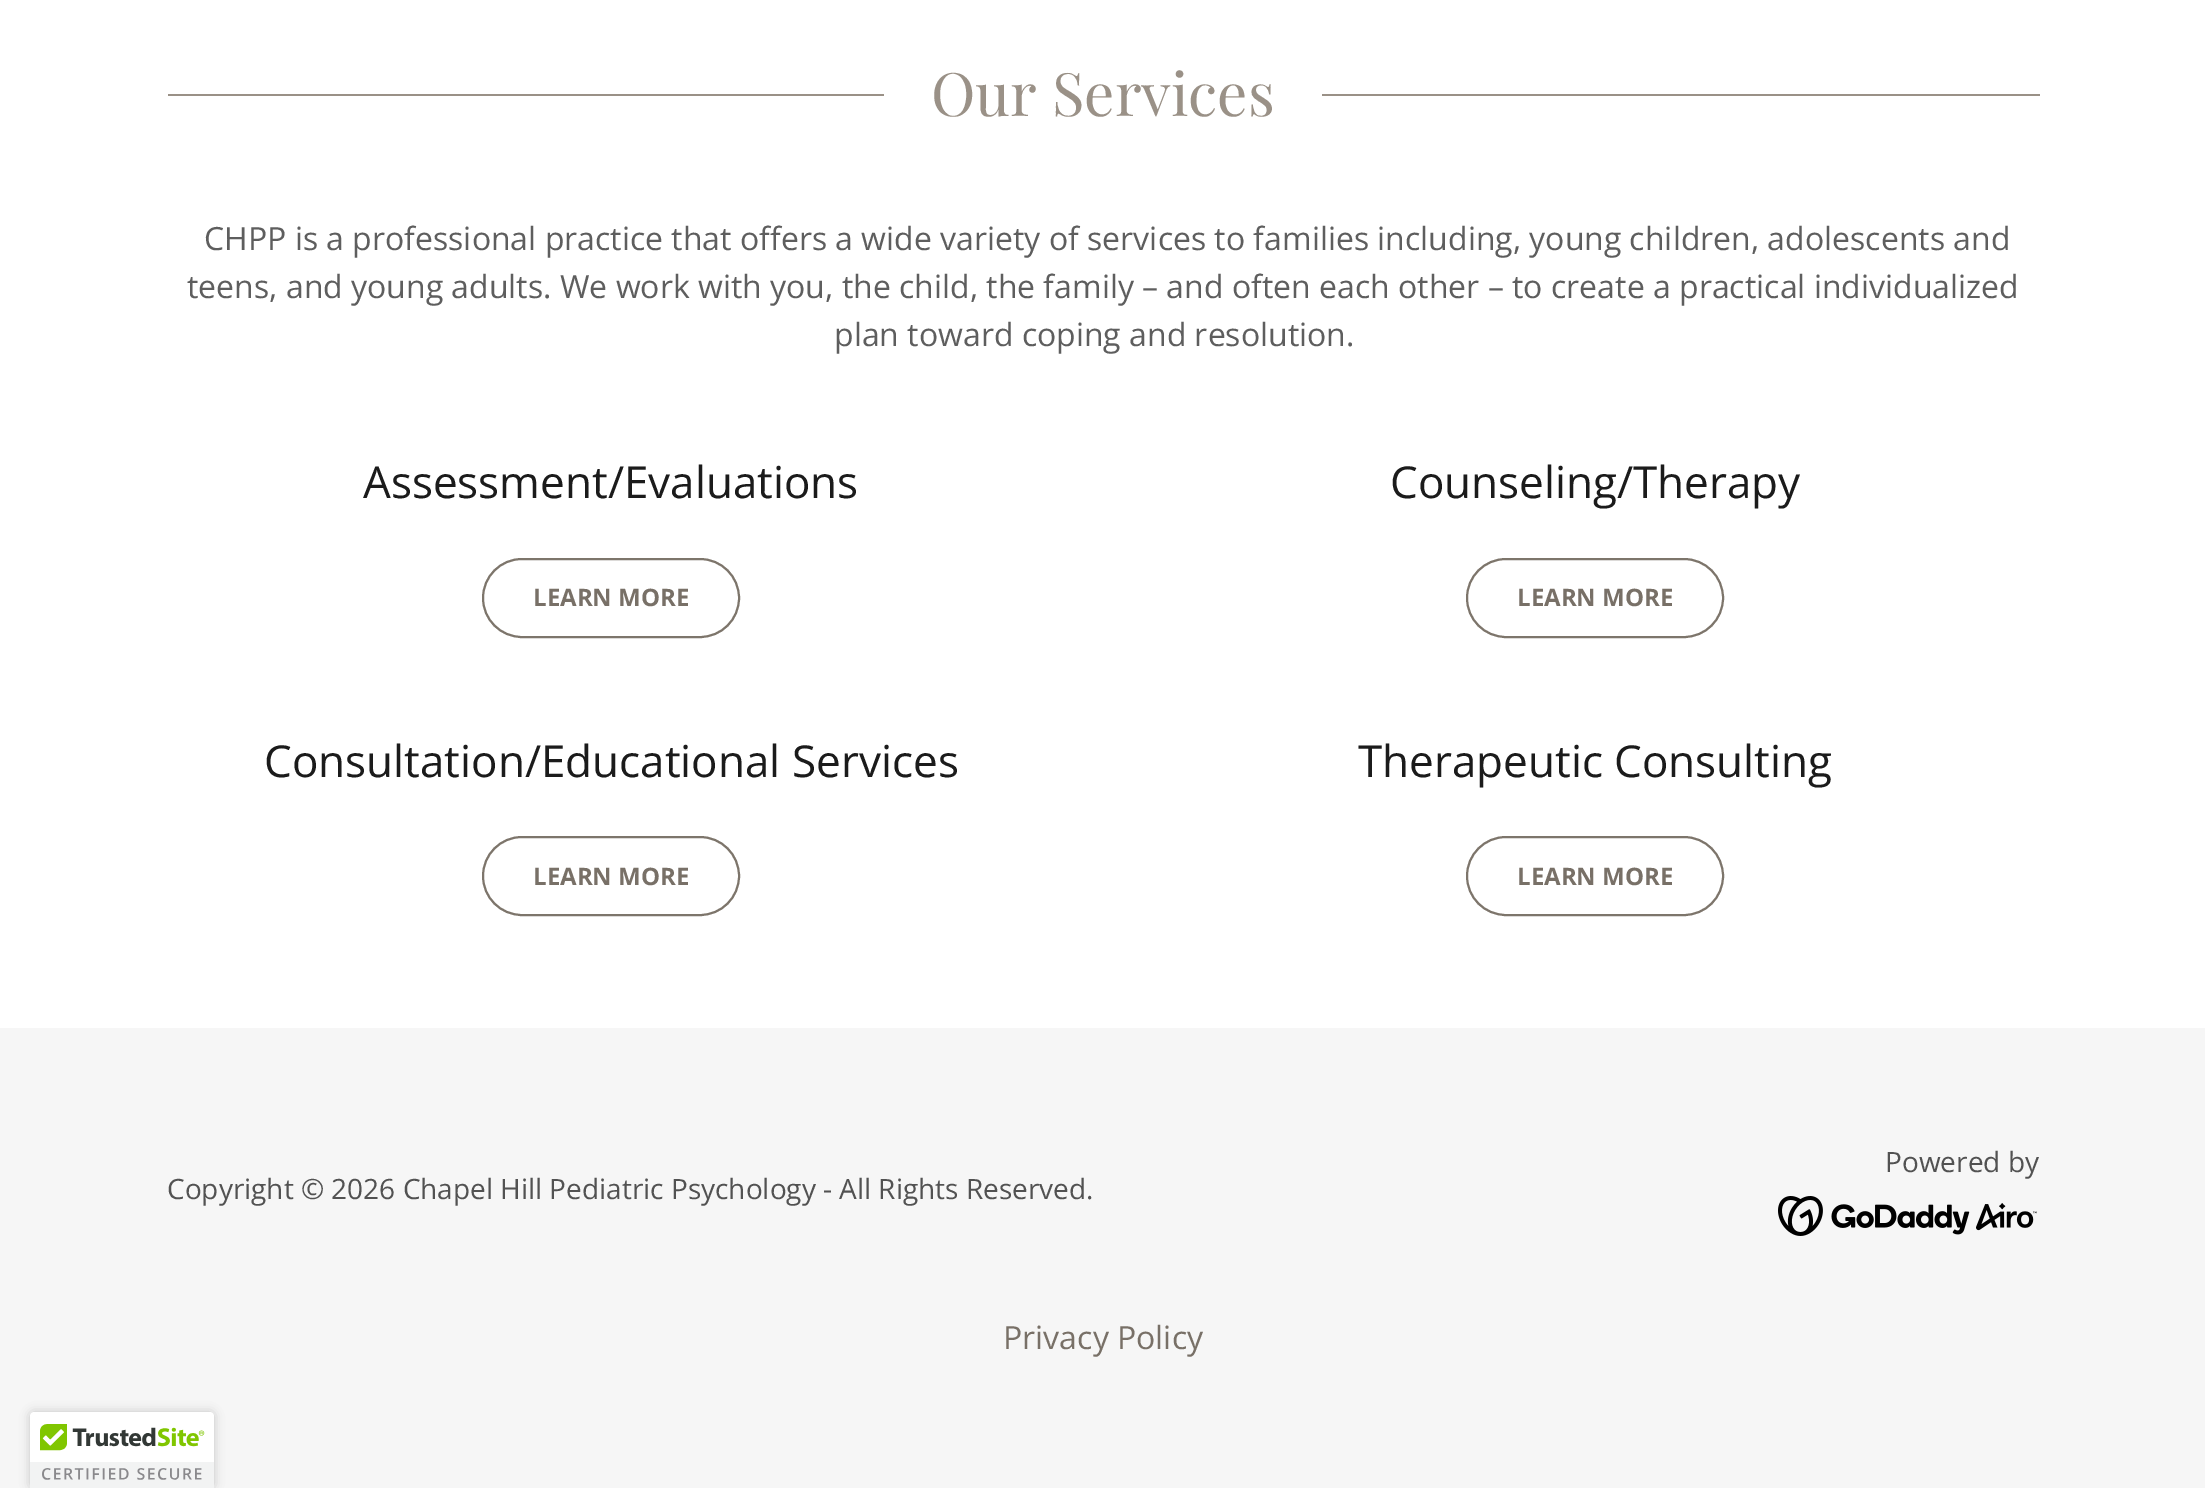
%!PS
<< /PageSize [2205 1488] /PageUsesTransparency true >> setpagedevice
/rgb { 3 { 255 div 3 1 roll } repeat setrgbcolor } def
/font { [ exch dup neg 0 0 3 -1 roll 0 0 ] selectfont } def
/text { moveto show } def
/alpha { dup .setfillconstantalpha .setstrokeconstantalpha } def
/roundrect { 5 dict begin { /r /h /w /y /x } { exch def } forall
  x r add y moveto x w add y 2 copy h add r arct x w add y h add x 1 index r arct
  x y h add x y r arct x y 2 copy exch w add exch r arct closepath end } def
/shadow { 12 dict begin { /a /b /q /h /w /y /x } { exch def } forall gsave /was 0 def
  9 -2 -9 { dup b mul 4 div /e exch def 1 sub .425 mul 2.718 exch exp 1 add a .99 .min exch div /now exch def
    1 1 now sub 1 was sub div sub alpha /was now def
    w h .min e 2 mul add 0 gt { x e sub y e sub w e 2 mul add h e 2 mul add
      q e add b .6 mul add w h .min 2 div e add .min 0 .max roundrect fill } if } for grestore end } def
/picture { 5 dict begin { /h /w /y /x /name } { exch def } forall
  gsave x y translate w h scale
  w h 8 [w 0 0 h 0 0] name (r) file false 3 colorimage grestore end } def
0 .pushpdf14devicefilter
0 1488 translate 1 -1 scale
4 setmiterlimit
246 246 246 rgb
0 0 2205 1488 rectfill
255 255 255 rgb
0 0 2205 1028 rectfill
154 145 135 rgb
168 94 716 2 rectfill
1322 94 718 2 rectfill
125 117 107 rgb
2 setlinewidth
483 559 256 78 39 roundrect stroke
1467 559 256 78 39 roundrect stroke
483 837 256 78 39 roundrect stroke
1467 837 256 78 39 roundrect stroke
(img_01.rgb) 1778 1196 259 40 picture
0 0 0 rgb
30 1412 184 76 4 5 0.2 shadow
255 255 255 rgb
34 1412 moveto 176 0 rlineto 2 0 4 2 4 4 rcurveto 0 72 rlineto -184 0 rlineto 0 -72 rlineto 0 -2 2 -4 4 -4 rcurveto closepath fill
(img_02.rgb) 30 1424 184 64 picture
/PlayfairDisplay-Regular 60 font
154 145 135 rgb
(Our Services) 931 116 text
/OpenSans-Regular 32 font
94 94 94 rgb
(CHPP is a professional practice that offers a wide variety of services to families including, young children, adolescents and) 204 250 text
(teens, and young adults. We work with you, the child, the family – and often each other – to create a practical individualized) 187 298 text
(plan toward coping and resolution.) 834 346 text
/OpenSans-Regular 44 font
27 27 27 rgb
(Assessment/Evaluations) 363 498 text
/OpenSans-Bold 24 font
120 112 103 rgb
(LEARN MORE) 533 606 text
/OpenSans-Regular 44 font
27 27 27 rgb
(Counseling/Therapy) 1390 498 text
/OpenSans-Bold 24 font
120 112 103 rgb
(LEARN MORE) 1517 606 text
/OpenSans-Regular 44 font
27 27 27 rgb
(Consultation/Educational Services) 264 777 text
/OpenSans-Bold 24 font
120 112 103 rgb
(LEARN MORE) 533 885 text
/OpenSans-Regular 44 font
27 27 27 rgb
(Therapeutic Consulting) 1358 777 text
/OpenSans-Bold 24 font
120 112 103 rgb
(LEARN MORE) 1517 885 text
/OpenSans-Regular 28 font
82 82 82 rgb
(Powered by) 1885 1172 text
(Copyright © 2026 Chapel Hill Pediatric Psychology - All Rights Reserved.) 167 1199 text
/OpenSans-Regular 32 font
120 112 103 rgb
(Privacy Policy) 1003 1349 text
.poppdf14devicefilter showpage
